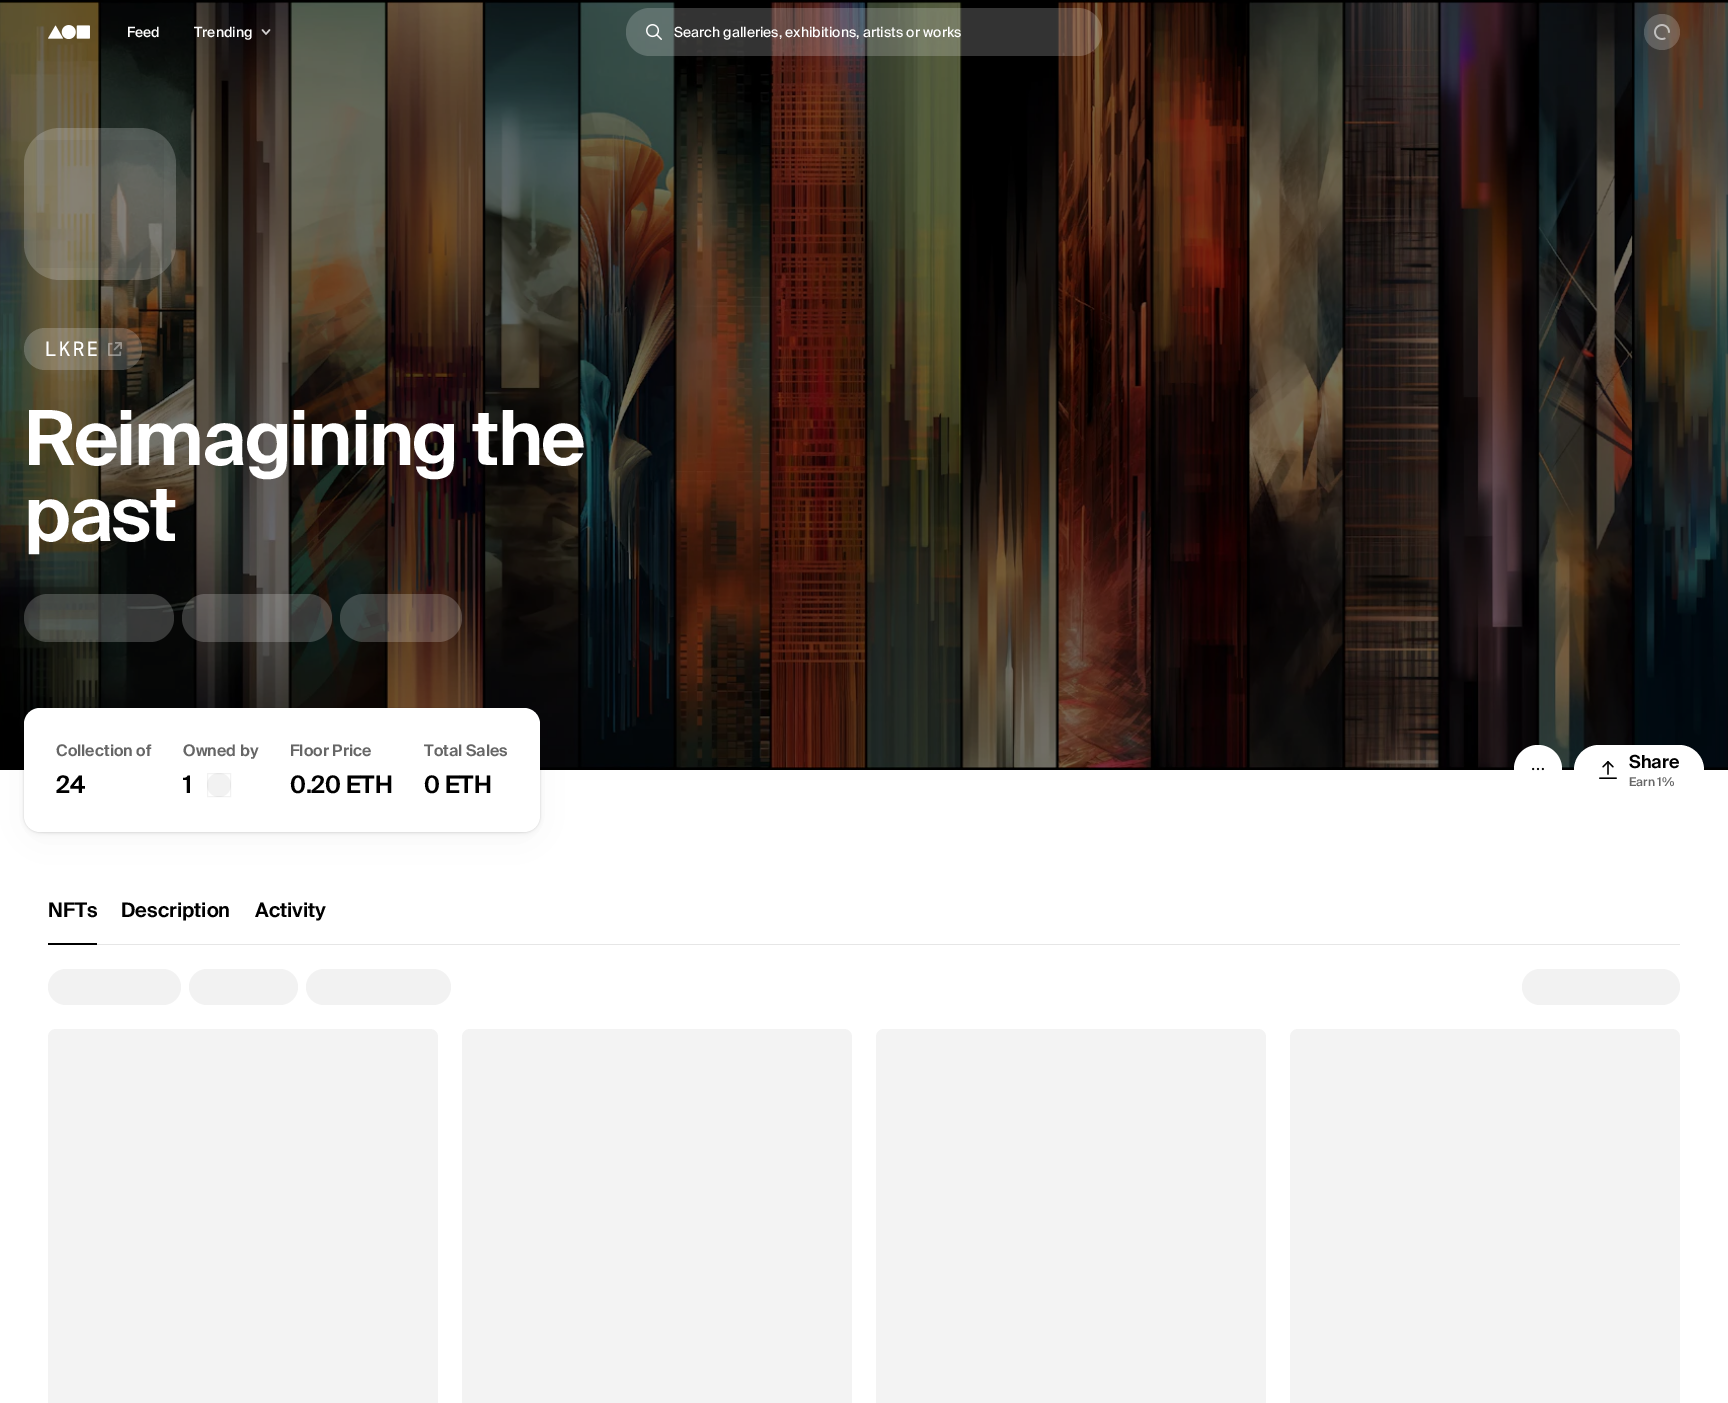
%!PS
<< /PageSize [1728 1403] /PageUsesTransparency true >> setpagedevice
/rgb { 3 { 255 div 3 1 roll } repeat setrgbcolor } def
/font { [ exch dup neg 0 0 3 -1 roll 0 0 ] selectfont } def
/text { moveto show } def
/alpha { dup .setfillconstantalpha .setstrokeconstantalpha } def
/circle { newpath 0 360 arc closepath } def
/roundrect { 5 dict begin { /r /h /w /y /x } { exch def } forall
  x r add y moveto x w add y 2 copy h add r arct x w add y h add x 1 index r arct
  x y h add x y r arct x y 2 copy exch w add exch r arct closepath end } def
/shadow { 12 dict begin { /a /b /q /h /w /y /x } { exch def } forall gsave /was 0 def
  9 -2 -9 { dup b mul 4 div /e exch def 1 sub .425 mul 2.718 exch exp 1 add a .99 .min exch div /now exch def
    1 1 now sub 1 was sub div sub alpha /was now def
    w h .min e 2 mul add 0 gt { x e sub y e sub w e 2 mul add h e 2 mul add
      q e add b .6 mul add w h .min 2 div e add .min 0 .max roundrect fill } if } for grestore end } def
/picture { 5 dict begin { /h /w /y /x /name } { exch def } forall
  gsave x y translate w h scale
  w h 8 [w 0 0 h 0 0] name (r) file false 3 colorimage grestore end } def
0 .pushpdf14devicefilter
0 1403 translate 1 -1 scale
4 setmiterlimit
255 255 255 rgb
0 0 1728 1403 rectfill
(img_04.rgb) 0 0 1728 770 picture
(img_01.rgb) 48 25 42 14 picture
0.8 alpha
1.5 setlinewidth
1 setlinecap
1 setlinejoin
262.5 30 moveto 3.5 4 rlineto 3.5 -4 rlineto stroke
0.2 alpha
626 8 476 48 24 roundrect fill
1 alpha
(img_02.rgb) 646 24 16 16 picture
0.2 alpha
1662 32 18 circle fill
1 alpha
(img_03.rgb) 1654 24 16 16 picture
0.2 alpha
24 128 152 152 36 roundrect fill
0.05 alpha
0 0 0 rgb
36 140 128 128 rectfill
0.2 alpha
255 255 255 rgb
24 328 118 42 21 roundrect fill
1 alpha
(img_05.rgb) 108 342 14 14 picture
0.2 alpha
24 594 150 48 24 roundrect fill
182 594 150 48 24 roundrect fill
340 594 122 48 24 roundrect fill
1 alpha
0 0 0 rgb
24 716 516 124 16 20 0.04 shadow
24 710 516 124 16 2.5 0.05 shadow
24 708 516 124 16 1 0.15 shadow
255 255 255 rgb
24 708 516 124 16 roundrect fill
242 242 242 rgb
219 785 12 circle fill
0.05 alpha
0 0 0 rgb
1 setlinewidth
0 setlinecap
0 setlinejoin
207.5 773.5 23 23 rectstroke
1 alpha
255 255 255 rgb
1538 769 24 circle fill
(img_06.rgb) 1532 767 12 4 picture
1574 745 130 50 25 roundrect fill
(img_07.rgb) 1599 761 18 18 picture
230 230 230 rgb
97 944 1583 1 rectfill
0 0 0 rgb
48 943 49 2 rectfill
242 242 242 rgb
48 969 133 36 18 roundrect fill
189 969 109 36 18 roundrect fill
306 969 145 36 18 roundrect fill
1522 969 158 36 18 roundrect fill
243 243 243 rgb
48 1029 390 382 8 roundrect fill
462 1029 390 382 8 roundrect fill
876 1029 390 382 8 roundrect fill
1290 1029 390 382 8 roundrect fill
/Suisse-Medium 14 font
255 255 255 rgb
(Feed) 127 37 text
(Trending) 194 37 text
/Suisse-Regular 14 font
(Search galleries, exhibitions, artists or works) 674 37 text
/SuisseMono-Regular 20 font
44 356 moveto 1 0 (LKRE) ashow
/Suisse-SemiBold 76 font
24 465 moveto -1.9 0 (Reimagining the) ashow
24 541 moveto -1.9 0 (past) ashow
/Suisse-SemiBold 16 font
102 102 102 rgb
(Collection of) 56 756 text
/Suisse-SemiBold 24 font
0 0 0 rgb
56 793 moveto -0.25 0 (24) ashow
/Suisse-SemiBold 16 font
102 102 102 rgb
(Owned by) 183 756 text
/Suisse-SemiBold 24 font
0 0 0 rgb
183 793 moveto -0.25 0 (1) ashow
/Suisse-SemiBold 16 font
102 102 102 rgb
(Floor Price) 290 756 text
/Suisse-SemiBold 24 font
0 0 0 rgb
290 793 moveto -0.25 0 (0.20 ETH) ashow
/Suisse-SemiBold 16 font
102 102 102 rgb
(Total Sales) 424 756 text
/Suisse-SemiBold 24 font
0 0 0 rgb
424 793 moveto -0.25 0 (0 ETH) ashow
/Suisse-SemiBold 18 font
(Share) 1629 768 text
/Suisse-Medium 12 font
102 102 102 rgb
(Earn 1%) 1629 786 text
/Suisse-SemiBold 20 font
0 0 0 rgb
(NFTs) 48 917 text
(Description) 121 917 text
(Activity) 255 917 text
.poppdf14devicefilter showpage
